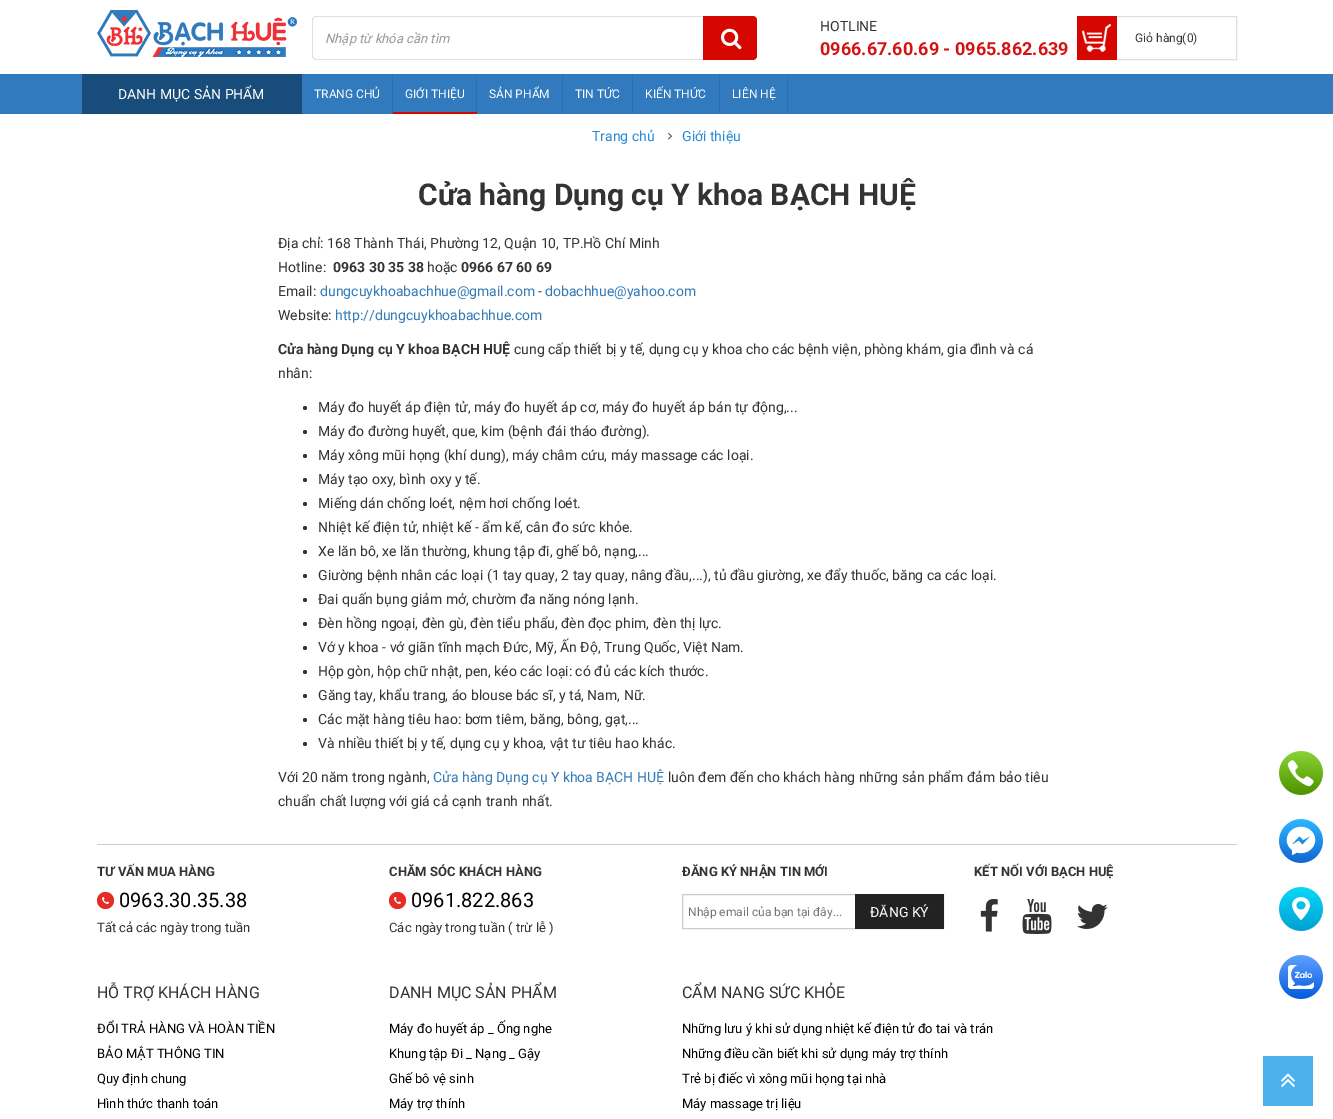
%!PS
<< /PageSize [1333 1119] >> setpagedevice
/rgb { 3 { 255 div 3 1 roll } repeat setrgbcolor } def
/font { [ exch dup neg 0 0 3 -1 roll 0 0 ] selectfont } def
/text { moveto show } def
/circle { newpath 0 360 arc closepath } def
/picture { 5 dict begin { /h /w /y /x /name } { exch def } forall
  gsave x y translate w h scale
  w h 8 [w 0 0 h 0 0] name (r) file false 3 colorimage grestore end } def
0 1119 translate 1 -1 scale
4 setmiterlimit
255 255 255 rgb
0 0 1333 1119 rectfill
(img_01.rgb) 97 10 200 47 picture
223 223 223 rgb
316 16 moveto 387 0 rlineto 0 44 rlineto -387 0 rlineto -2 0 -4 -2 -4 -4 rcurveto 0 -36 rlineto 0 -2 2 -4 4 -4 rcurveto closepath 316 17 moveto 387 0 rlineto 0 42 rlineto -387 0 rlineto -2 0 -3 -1 -3 -3 rcurveto 0 -36 rlineto 0 -2 1 -3 3 -3 rcurveto closepath eofill
214 7 1 rgb
703 16 moveto 50 0 rlineto 2 0 4 2 4 4 rcurveto 0 36 rlineto 0 2 -2 4 -4 4 rcurveto -50 0 rlineto closepath fill
(img_02.rgb) 721 28 21 22 picture
223 223 223 rgb
1077.5 16.5 159 43 rectstroke
214 7 1 rgb
1077 16 40 44 rectfill
(img_03.rgb) 1082 24 29 28 picture
48 122 189 rgb
0 74 1333 40 rectfill
23 76 123 rgb
82 74 220 40 rectfill
44 111 172 rgb
392 74 1 40 rectfill
476 74 1 40 rectfill
214 7 1 rgb
393 112 84 2 rectfill
44 111 172 rgb
562 74 1 40 rectfill
632 74 1 40 rectfill
719 74 1 40 rectfill
787 74 1 40 rectfill
(img_04.rgb) 668 132 4 8 picture
51 51 51 rgb
305 408 2 circle fill
305 432 2 circle fill
305 456 2 circle fill
305 480 2 circle fill
305 504 2 circle fill
305 528 2 circle fill
305 552 2 circle fill
305 576 2 circle fill
305 600 2 circle fill
305 624 2 circle fill
305 648 2 circle fill
305 672 2 circle fill
305 696 2 circle fill
305 720 2 circle fill
305 744 2 circle fill
204 204 204 rgb
97 844 1140 1 rectfill
229 44 37 rgb
105.5 900.5 8.5 circle fill
(img_05.rgb) 102 896 8 8 picture
397.5 900.5 8.5 circle fill
(img_05.rgb) 394 896 8 8 picture
204 204 204 rgb
682.5 894.5 261 34 rectstroke
34 34 34 rgb
855 894 89 35 rectfill
(img_06.rgb) 980 899 18 33 picture
(img_07.rgb) 1022 899 30 35 picture
(img_08.rgb) 1077 904 31 25 picture
(img_09.rgb) 1279 751 44 44 picture
(img_10.rgb) 1279 819 44 44 picture
(img_11.rgb) 1279 887 44 44 picture
(img_12.rgb) 1279 955 44 44 picture
77 178 236 rgb
1263 1056 50 50 rectfill
(img_13.rgb) 1281 1073 14 14 picture
/Roboto-Italic 13 font
153 153 153 rgb
(Nhập từ khóa cần tìm) 325 43 text
/Roboto-Regular 14 font
51 51 51 rgb
(HOTLINE) 820 31 text
/Roboto-Bold 18 font
212 18 18 rgb
(0966.67.60.69 - 0965.862.639) 820 55 text
/Roboto-Regular 12 font
51 51 51 rgb
(Giỏ hàng\(0\)) 1135 42 text
/Roboto-Regular 14 font
255 255 255 rgb
(DANH MỤC SẢN PHẨM) 118 99 text
/Roboto-Regular 12 font
(TRANG CHỦ) 314 98 text
(GIỚI THIỆU) 405 98 text
(SẢN PHẨM) 489 98 text
(TIN TỨC) 575 98 text
(KIẾN THỨC) 645 98 text
(LIÊN HỆ) 732 98 text
/Roboto-Regular 14 font
40 138 214 rgb
(Trang chủ) 592 141 text
(Giới thiệu) 682 141 text
/Roboto-Bold 30 font
51 51 51 rgb
(Cửa hàng Dụng cụ Y khoa BẠCH HUỆ) 418 205 text
/Roboto-Regular 14 font
(Địa chỉ: 168 Thành Thái, Phường 12, Quận 10, TP.Hồ Chí Minh) 278 248 text
(Hotline:) 278 272 text
/Roboto-Bold 14 font
(0963 30 35 38) 333 272 text
/Roboto-Regular 14 font
(hoặc) 427 272 text
/Roboto-Bold 14 font
(0966 67 60 69) 461 272 text
/Roboto-Regular 14 font
(Email:) 278 296 text
51 122 183 rgb
(dungcuykhoabachhue@gmail.com) 320 296 text
51 51 51 rgb
(-) 538 296 text
51 122 183 rgb
(dobachhue@yahoo.com) 545 296 text
51 51 51 rgb
(Website:) 278 320 text
51 122 183 rgb
(http://dungcuykhoabachhue.com) 335 320 text
/Roboto-Bold 14 font
51 51 51 rgb
(Cửa hàng Dụng cụ Y khoa BẠCH HUỆ) 278 354 text
/Roboto-Regular 14 font
(cung cấp thiết bị y tế, dụng cụ y khoa cho các bệnh viện, phòng khám, gia đình và cá) 514 354 text
(nhân:) 278 378 text
(Máy đo huyết áp điện tử, máy đo huyết áp cơ, máy đo huyết áp bán tự động,...) 318 412 text
(Máy đo đường huyết, que, kim \(bệnh đái tháo đường\).) 318 436 text
(Máy xông mũi họng \(khí dung\), máy châm cứu, máy massage các loại.) 318 460 text
(Máy tạo oxy, bình oxy y tế.) 318 484 text
(Miếng dán chống loét, nệm hơi chống loét.) 318 508 text
(Nhiệt kế điện tử, nhiệt kế - ẩm kế, cân đo sức khỏe.) 318 532 text
(Xe lăn bô, xe lăn thường, khung tập đi, ghế bô, nạng,...) 318 556 text
(Giường bệnh nhân các loại \(1 tay quay, 2 tay quay, nâng đầu,...\), tủ đầu giường, xe đẩy thuốc, băng ca các loại.) 318 580 text
(Đai quấn bụng giảm mở, chườm đa năng nóng lạnh.) 318 604 text
(Đèn hồng ngoại, đèn gù, đèn tiểu phẩu, đèn đọc phim, đèn thị lực.) 318 628 text
(Vớ y khoa - vớ giãn tĩnh mạch Đức, Mỹ, Ấn Độ, Trung Quốc, Việt Nam.) 318 652 text
(Hộp gòn, hộp chữ nhật, pen, kéo các loại: có đủ các kích thước.) 318 676 text
(Găng tay, khẩu trang, áo blouse bác sĩ, y tá, Nam, Nữ.) 318 700 text
(Các mặt hàng tiêu hao: bơm tiêm, băng, bông, gạt,...) 318 724 text
(Và nhiều thiết bị y tế, dụng cụ y khoa, vật tư tiêu hao khác.) 318 748 text
(Với 20 năm trong ngành,) 278 782 text
51 122 183 rgb
(Cửa hàng Dụng cụ Y khoa BẠCH HUỆ) 433 782 text
51 51 51 rgb
(luôn đem đến cho khách hàng những sản phẩm đảm bảo tiêu) 668 782 text
(chuẩn chất lượng với giá cả cạnh tranh nhất.) 278 806 text
/Roboto-Bold 13 font
(TƯ VẤN MUA HÀNG) 97 876 text
/Roboto-Regular 20 font
0 0 0 rgb
(0963.30.35.38) 119 907 text
/Roboto-Regular 13 font
51 51 51 rgb
(Tất cả các ngày trong tuần) 97 932 text
/Roboto-Bold 13 font
(CHĂM SÓC KHÁCH HÀNG) 389 876 text
/Roboto-Regular 20 font
0 0 0 rgb
(0961.822.863) 411 907 text
/Roboto-Regular 13 font
51 51 51 rgb
(Các ngày trong tuần \( trừ lễ \)) 389 932 text
/Roboto-Bold 13 font
(ĐĂNG KÝ NHẬN TIN MỚI) 682 876 text
/Roboto-Regular 12 font
117 117 117 rgb
(Nhập email của bạn tại đây...) 688 916 text
/Roboto-Regular 14 font
255 255 255 rgb
(ĐĂNG KÝ) 870 917 text
/Roboto-Bold 13 font
51 51 51 rgb
(KẾT NỐI VỚI BẠCH HUỆ) 974 876 text
/Roboto-Regular 16 font
(HỖ TRỢ KHÁCH HÀNG) 97 998 text
/Roboto-Regular 13 font
0 0 0 rgb
(ĐỔI TRẢ HÀNG VÀ HOÀN TIỀN) 97 1033 text
(BẢO MẬT THÔNG TIN) 97 1058 text
(Quy định chung) 97 1083 text
(Hình thức thanh toán) 97 1108 text
/Roboto-Regular 16 font
51 51 51 rgb
(DANH MỤC SẢN PHẨM) 389 998 text
/Roboto-Regular 13 font
0 0 0 rgb
(Máy đo huyết áp _ Ống nghe) 389 1033 text
(Khung tập Đi _ Nạng _ Gậy) 389 1058 text
(Ghế bô vệ sinh) 389 1083 text
(Máy trợ thính) 389 1108 text
/Roboto-Regular 16 font
51 51 51 rgb
(CẨM NANG SỨC KHỎE) 682 998 text
/Roboto-Regular 13 font
0 0 0 rgb
(Những lưu ý khi sử dụng nhiệt kế điện tử đo tai và trán) 682 1033 text
(Những điều cần biết khi sử dụng máy trợ thính) 682 1058 text
(Trẻ bị điếc vì xông mũi họng tại nhà) 682 1083 text
(Máy massage trị liệu) 682 1108 text
showpage
